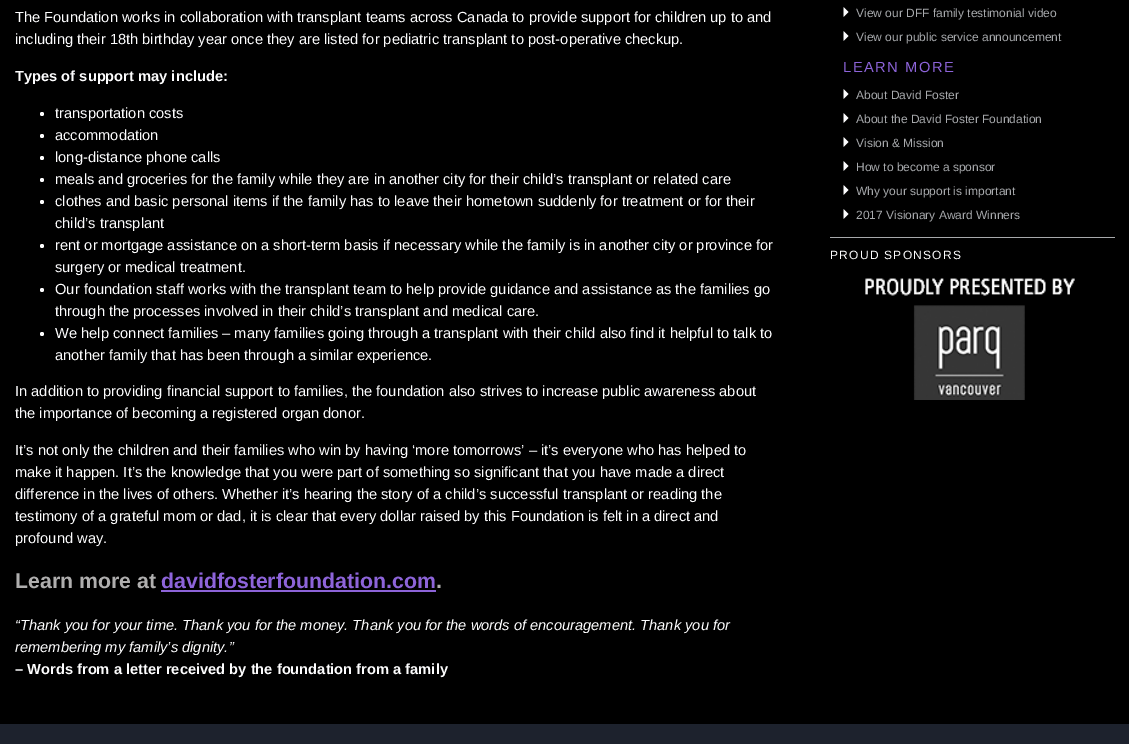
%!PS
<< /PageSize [1129 744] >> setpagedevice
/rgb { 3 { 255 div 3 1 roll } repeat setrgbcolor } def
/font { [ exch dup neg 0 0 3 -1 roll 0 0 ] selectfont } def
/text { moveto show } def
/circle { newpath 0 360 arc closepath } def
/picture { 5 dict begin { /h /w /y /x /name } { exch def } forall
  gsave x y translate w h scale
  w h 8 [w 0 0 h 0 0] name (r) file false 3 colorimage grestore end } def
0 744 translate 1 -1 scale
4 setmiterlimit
29 34 45 rgb
0 0 1129 744 rectfill
0 0 0 rgb
0 0 1129 724 rectfill
253 253 254 rgb
42 114 2 circle fill
42 136 2 circle fill
42 158 2 circle fill
42 180 2 circle fill
42 202 2 circle fill
42 246 2 circle fill
42 290 2 circle fill
42 334 2 circle fill
141 100 217 rgb
161 590 275 2 rectfill
167 169 171 rgb
830 237 285 1 rectfill
(img_01.rgb) 843 7 6 10 picture
(img_01.rgb) 843 31 6 10 picture
(img_01.rgb) 843 89 6 10 picture
(img_01.rgb) 843 113 6 10 picture
(img_01.rgb) 843 137 6 10 picture
(img_01.rgb) 843 161 6 10 picture
(img_01.rgb) 843 185 6 10 picture
(img_01.rgb) 843 209 6 10 picture
(img_02.rgb) 865 278 210 122 picture
/LiberationSans-Regular 14.67 font
253 253 254 rgb
(The Foundation works in collaboration with transplant teams across Canada to provide support for children up to and) 15 22 text
(including their 18th birthday year once they are listed for pediatric transplant to post-operative checkup.) 15 44 text
/LiberationSans-Bold 14.67 font
(Types of support may include:) 15 81 text
/LiberationSans-Regular 14.67 font
(transportation costs) 55 118 text
(accommodation) 55 140 text
(long-distance phone calls) 55 162 text
(meals and groceries for the family while they are in another city for their child’s transplant or related care) 55 184 text
(clothes and basic personal items if the family has to leave their hometown suddenly for treatment or for their) 55 206 text
(child’s transplant) 55 228 text
(rent or mortgage assistance on a short-term basis if necessary while the family is in another city or province for) 55 250 text
(surgery or medical treatment.) 55 272 text
(Our foundation staff works with the transplant team to help provide guidance and assistance as the families go) 55 294 text
(through the processes involved in their child’s transplant and medical care.) 55 316 text
(We help connect families – many families going through a transplant with their child also find it helpful to talk to) 55 338 text
(another family that has been through a similar experience.) 55 360 text
(In addition to providing financial support to families, the foundation also strives to increase public awareness about) 15 396 text
(the importance of becoming a registered organ donor.) 15 418 text
(It’s not only the children and their families who win by having ‘more tomorrows’ – it’s everyone who has helped to) 15 455 text
(make it happen. It’s the knowledge that you were part of something so significant that you have made a direct) 15 477 text
(difference in the lives of others. Whether it’s hearing the story of a child’s successful transplant or reading the) 15 499 text
(testimony of a grateful mom or dad, it is clear that every dollar raised by this Foundation is felt in a direct and) 15 521 text
(profound way.) 15 543 text
/LiberationSans-Bold 21.3 font
175 174 174 rgb
(Learn more at) 15 588 text
141 100 217 rgb
(davidfosterfoundation.com) 161 588 text
175 174 174 rgb
(.) 436 588 text
/LiberationSans-Italic 14.67 font
253 253 254 rgb
(“Thank you for your time. Thank you for the money. Thank you for the words of encouragement. Thank you for) 15 630 text
(remembering my family’s dignity.”) 15 652 text
/LiberationSans-Bold 14.67 font
(– Words from a letter received by the foundation from a family) 15 674 text
/LiberationSans-Regular 12 font
167 169 172 rgb
(View our DFF family testimonial video) 856 17 text
(View our public service announcement) 856 41 text
/LiberationSans-Regular 14.67 font
141 100 217 rgb
843 72 moveto 1.5 0 (LEARN MORE) ashow
/LiberationSans-Regular 12 font
167 169 172 rgb
(About David Foster) 856 99 text
(About the David Foster Foundation) 856 123 text
(Vision & Mission) 856 147 text
(How to become a sponsor) 856 171 text
(Why your support is important) 856 195 text
(2017 Visionary Award Winners) 856 219 text
253 253 254 rgb
830 259 moveto 1.25 0 (PROUD SPONSORS) ashow
showpage
